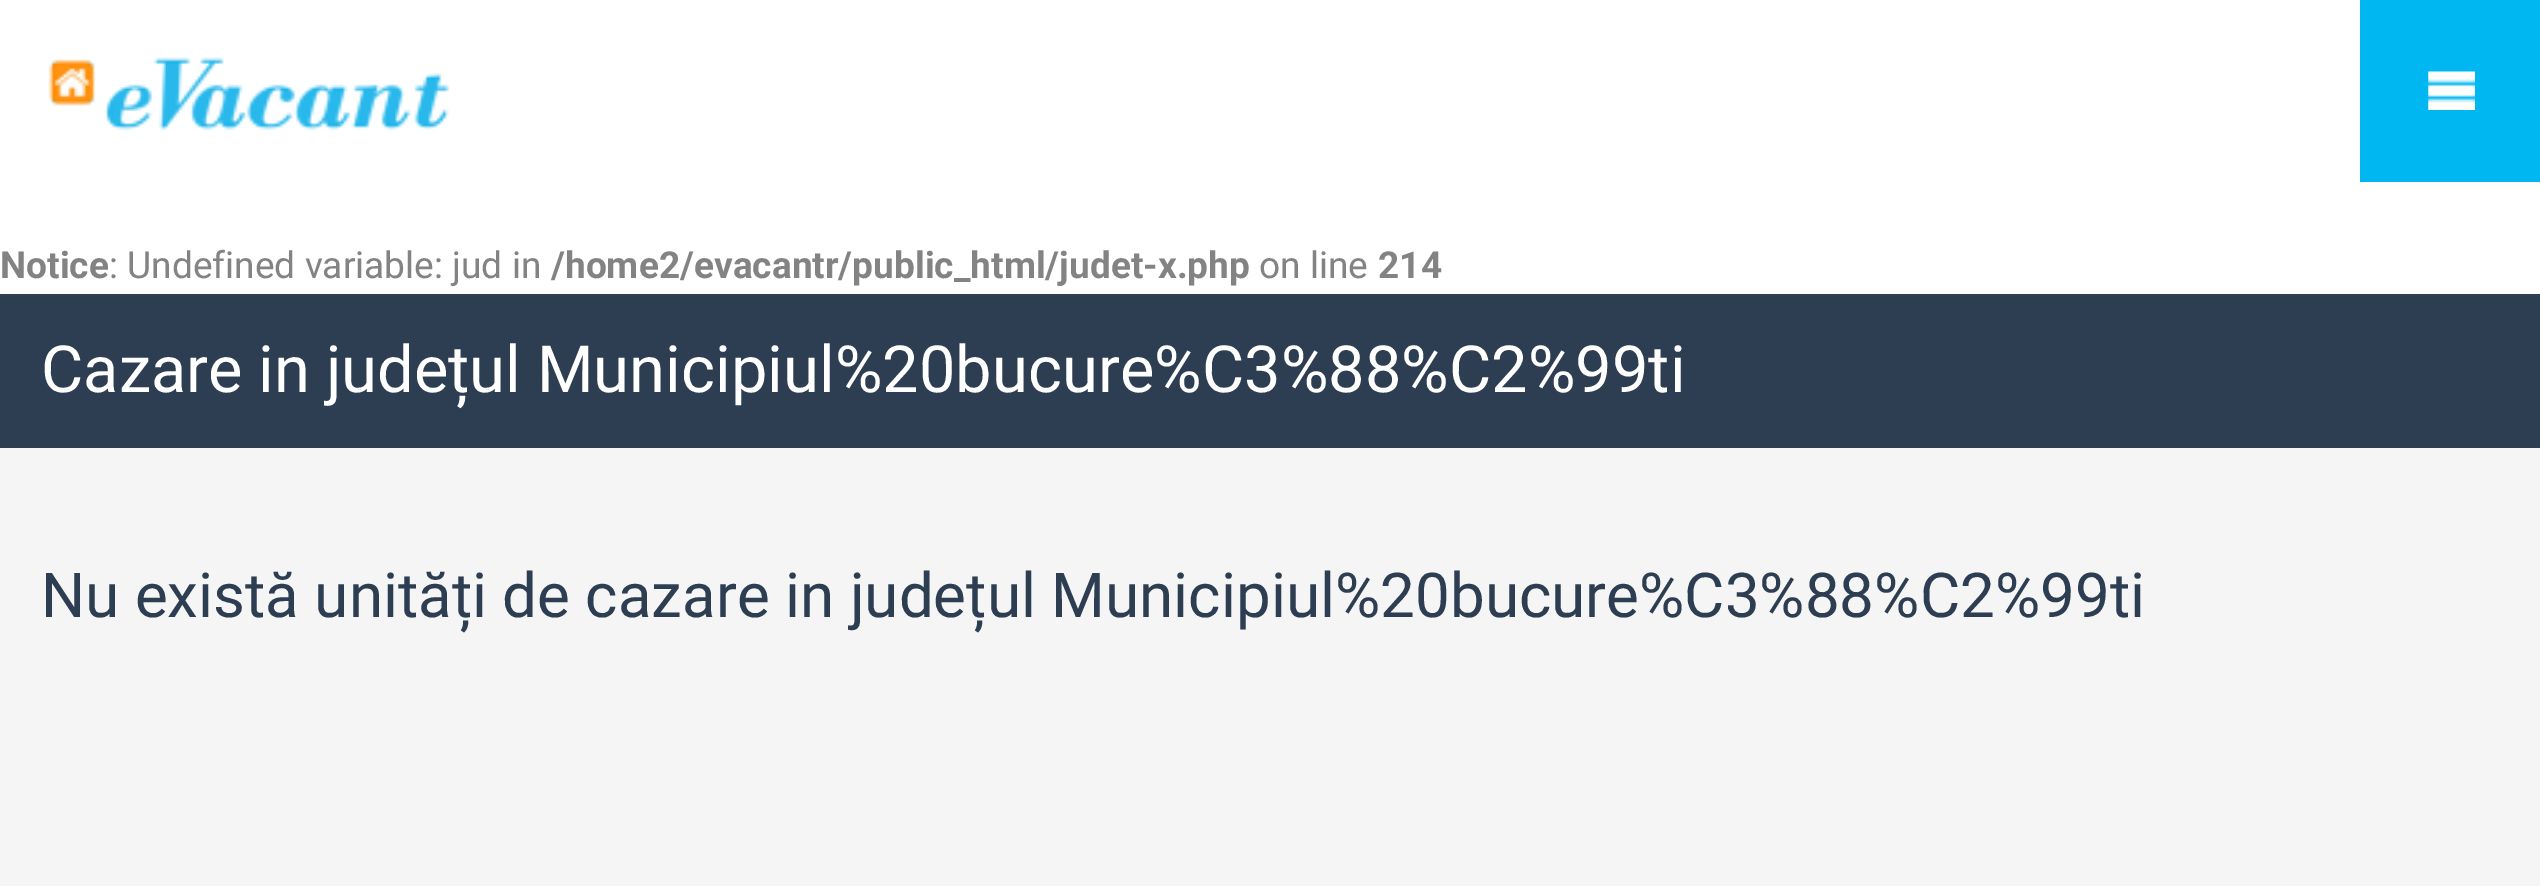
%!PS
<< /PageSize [2540 886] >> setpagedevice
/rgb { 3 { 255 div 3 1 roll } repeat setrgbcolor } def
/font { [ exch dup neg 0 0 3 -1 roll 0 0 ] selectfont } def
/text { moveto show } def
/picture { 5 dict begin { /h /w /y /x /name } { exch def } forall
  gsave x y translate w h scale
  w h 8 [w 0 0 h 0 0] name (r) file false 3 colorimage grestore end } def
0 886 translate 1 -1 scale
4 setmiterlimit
255 255 255 rgb
0 0 2540 886 rectfill
(img_01.rgb) 48 57 402 74 picture
1 183 242 rgb
2360 0 180 182 rectfill
(img_02.rgb) 2428 71 47 39 picture
45 62 82 rgb
0 294 2540 154 rectfill
245 245 245 rgb
0 448 2540 438 rectfill
/Roboto-Bold 37.1 font
131 131 131 rgb
(Notice) 0 278 text
/Roboto-Regular 37.1 font
(: Undefined variable: jud in) 109 278 text
/Roboto-Bold 37.1 font
(/home2/evacantr/public_html/judet-x.php) 551 278 text
/Roboto-Regular 37.1 font
(on line) 1259 278 text
/Roboto-Bold 37.1 font
(214) 1378 278 text
/Roboto-Regular 65 font
255 255 255 rgb
41 392 moveto -0.5 0 32 (Cazare in județul Municipiul%20bucure%C3%88%C2%99ti) widthshow
/Roboto-Regular 61.9 font
45 62 82 rgb
(Nu există unități de cazare in județul Municipiul%20bucure%C3%88%C2%99ti) 41 617 text
showpage
